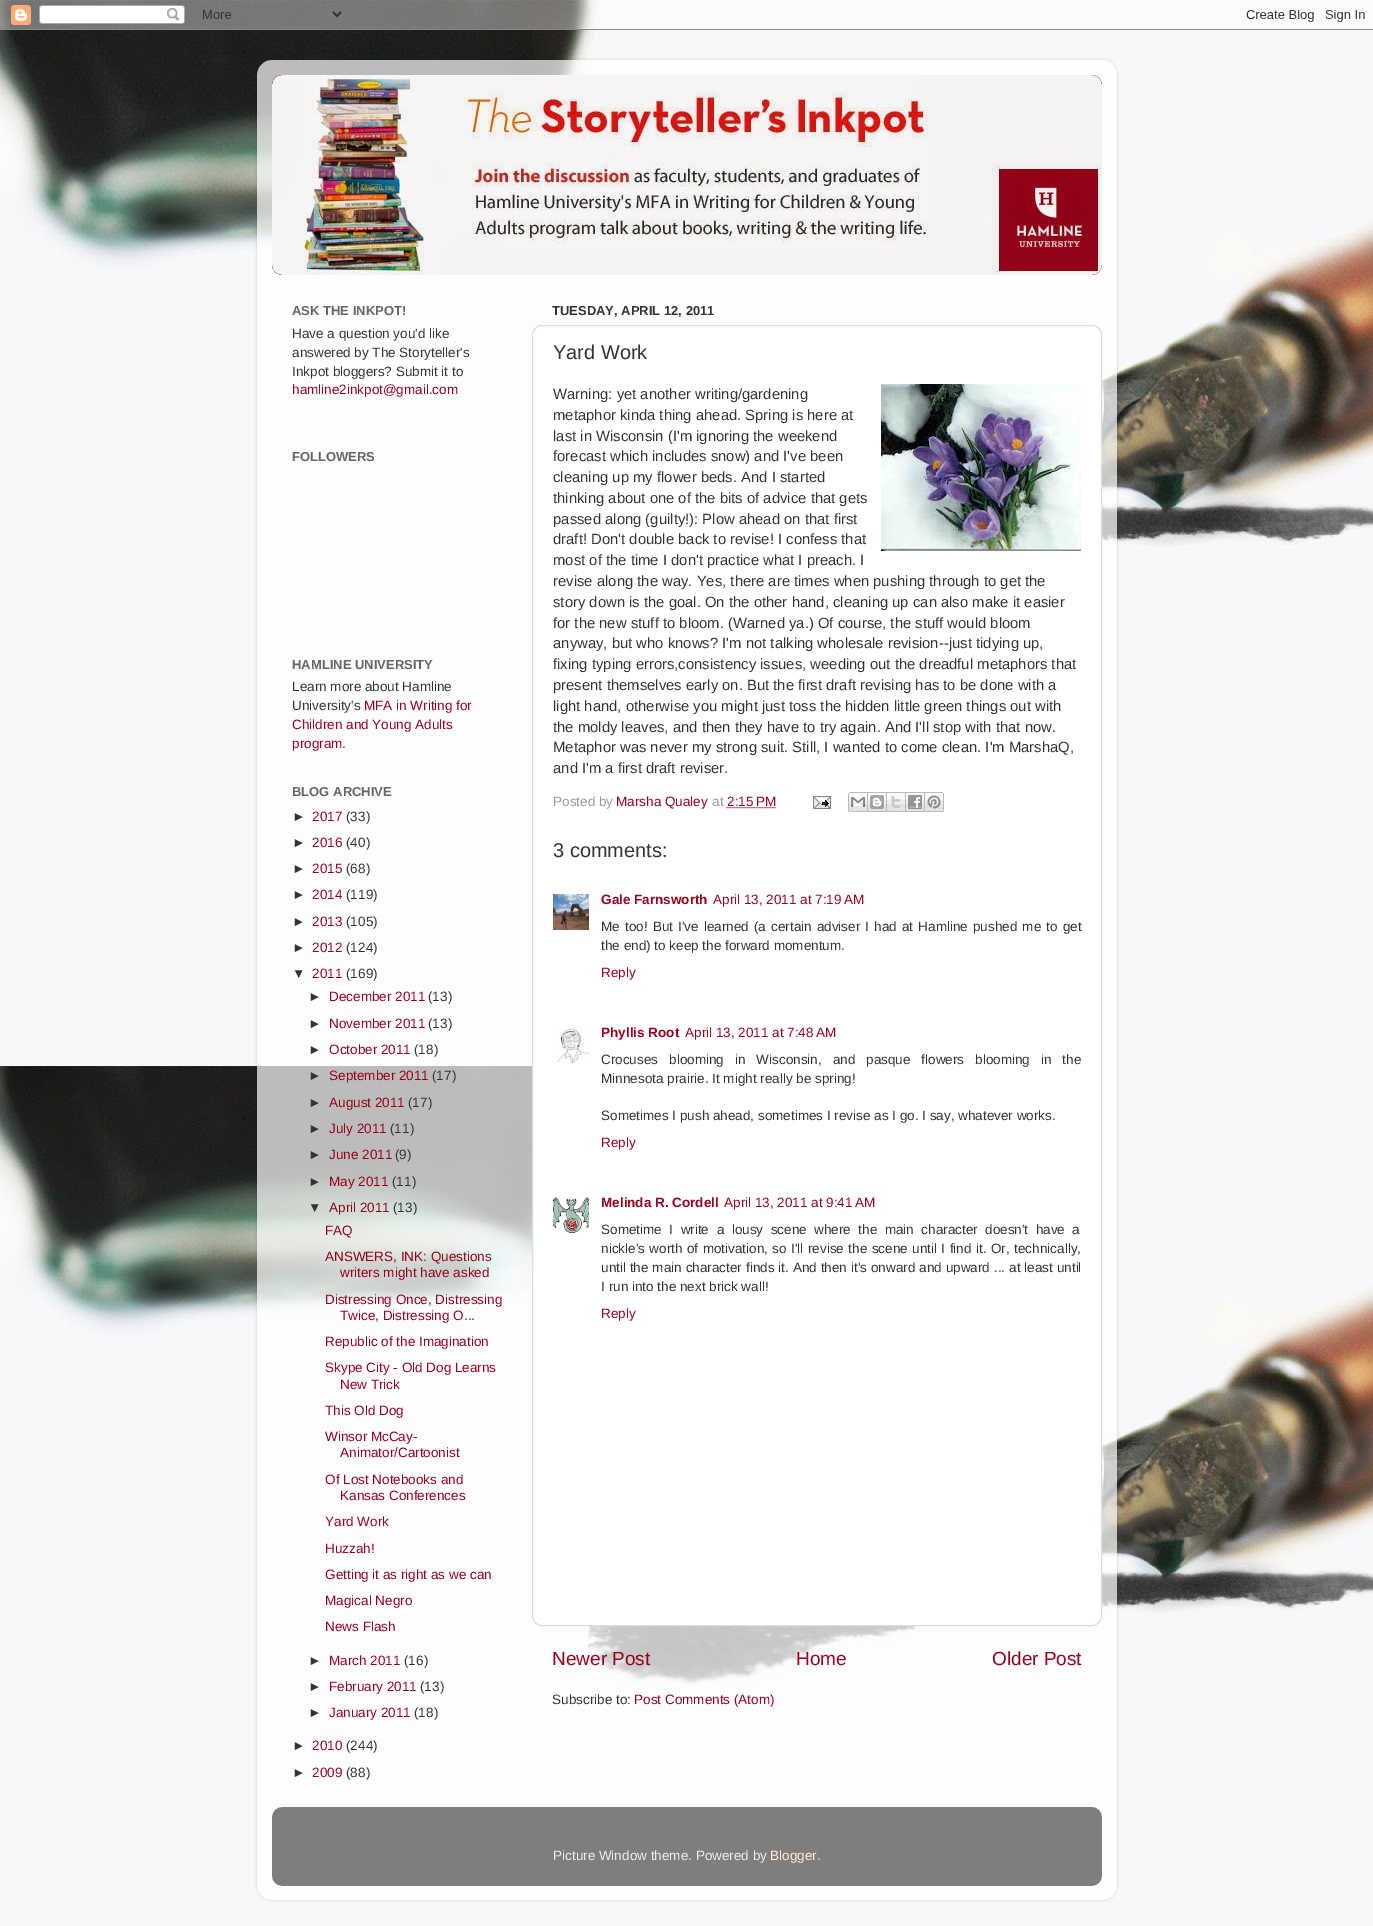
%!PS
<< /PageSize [1373 1926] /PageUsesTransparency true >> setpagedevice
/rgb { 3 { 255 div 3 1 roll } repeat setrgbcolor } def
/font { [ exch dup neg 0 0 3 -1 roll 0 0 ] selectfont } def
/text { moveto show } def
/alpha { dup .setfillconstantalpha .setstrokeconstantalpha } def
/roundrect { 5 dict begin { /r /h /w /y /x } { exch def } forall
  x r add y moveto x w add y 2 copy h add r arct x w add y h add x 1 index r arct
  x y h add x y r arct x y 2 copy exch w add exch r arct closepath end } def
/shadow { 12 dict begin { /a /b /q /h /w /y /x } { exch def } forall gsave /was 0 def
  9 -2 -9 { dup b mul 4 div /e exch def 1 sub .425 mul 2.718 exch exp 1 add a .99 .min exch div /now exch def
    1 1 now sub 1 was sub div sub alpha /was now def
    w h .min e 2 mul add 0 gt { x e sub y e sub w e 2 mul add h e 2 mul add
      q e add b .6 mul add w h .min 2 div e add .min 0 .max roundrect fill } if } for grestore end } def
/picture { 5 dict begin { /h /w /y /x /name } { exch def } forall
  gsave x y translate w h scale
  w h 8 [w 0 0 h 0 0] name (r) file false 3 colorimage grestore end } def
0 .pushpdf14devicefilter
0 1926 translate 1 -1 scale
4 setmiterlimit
255 255 255 rgb
0 0 1373 1926 rectfill
(img_01.rgb) 0 0 1373 1926 picture
(img_02.rgb) 0 0 1373 30 picture
gsave
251 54 moveto 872 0 rlineto 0 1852 rlineto -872 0 rlineto closepath 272 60 moveto 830 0 rlineto 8.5 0 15 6.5 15 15 rcurveto 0 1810 rlineto 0 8.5 -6.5 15 -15 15 rcurveto -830 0 rlineto -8.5 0 -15 -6.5 -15 -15 rcurveto 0 -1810 rlineto 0 -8.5 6.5 -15 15 -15 rcurveto closepath eoclip newpath
0 0 0 rgb
257 60 860 1840 15 1.5 0.15 shadow
grestore
(img_03.rgb) 257 60 860 1840 picture
153 17 68 rgb
272 75 830 200 10 roundrect fill
(img_04.rgb) 272 75 830 10 picture
(img_05.rgb) 272 75 830 200 picture
255 255 255 rgb
532.5 325.5 569 1300 9.5 roundrect gsave fill grestore
221 221 221 rgb
stroke
(img_06.rgb) 881 384 200 167 picture
149 2 30 rgb
[1 1] 0 setdash
726.5 807.5 moveto 49.5 0 rlineto stroke
(img_07.rgb) 813 796 18 13 picture
(img_08.rgb) 848 792 20 20 picture
(img_09.rgb) 868 792 19 20 picture
(img_10.rgb) 887 792 19 20 picture
(img_11.rgb) 906 792 19 20 picture
(img_12.rgb) 925 792 19 20 picture
(img_13.rgb) 553 894 36 36 picture
(img_14.rgb) 556 1027 33 36 picture
(img_15.rgb) 553 1197 36 36 picture
(img_16.rgb) 272 1807 830 79 picture
/LiberationSans-Bold 13 font
102 102 102 rgb
(ASK THE INKPOT!) 292 315 text
/LiberationSans-Regular 13.5 font
51 51 51 rgb
(Have a question you'd like) 292 338 text
(answered by The Storyteller's) 292 357 text
(Inkpot bloggers? Submit it to) 292 376 text
149 2 30 rgb
(hamline2inkpot@gmail.com) 292 394 text
/LiberationSans-Bold 13 font
102 102 102 rgb
(FOLLOWERS) 292 461 text
(HAMLINE UNIVERSITY) 292 669 text
/LiberationSans-Regular 13.5 font
51 51 51 rgb
(Learn more about Hamline) 292 691 text
(University's) 292 710 text
149 2 30 rgb
(MFA in Writing for) 364 710 text
(Children and Young Adults) 292 729 text
(program.) 292 748 text
/LiberationSans-Bold 13 font
102 102 102 rgb
(BLOG ARCHIVE) 292 796 text
/LiberationSans-Regular 13.5 font
51 51 51 rgb
(►) 292 821 text
149 2 30 rgb
(2017) 312 821 text
51 51 51 rgb
(\(33\)) 346 821 text
(►) 292 847 text
149 2 30 rgb
(2016) 312 847 text
51 51 51 rgb
(\(40\)) 346 847 text
(►) 292 873 text
149 2 30 rgb
(2015) 312 873 text
51 51 51 rgb
(\(68\)) 346 873 text
(►) 292 899 text
149 2 30 rgb
(2014) 312 899 text
51 51 51 rgb
(\(119\)) 346 899 text
(►) 292 926 text
149 2 30 rgb
(2013) 312 926 text
51 51 51 rgb
(\(105\)) 346 926 text
(►) 292 952 text
149 2 30 rgb
(2012) 312 952 text
51 51 51 rgb
(\(124\)) 346 952 text
(▼) 292 978 text
149 2 30 rgb
(2011) 312 978 text
51 51 51 rgb
(\(169\)) 346 978 text
(►) 308 1001 text
149 2 30 rgb
(December 2011) 329 1001 text
51 51 51 rgb
(\(13\)) 428 1001 text
(►) 308 1028 text
149 2 30 rgb
(November 2011) 329 1028 text
51 51 51 rgb
(\(13\)) 428 1028 text
(►) 308 1054 text
149 2 30 rgb
(October 2011) 329 1054 text
51 51 51 rgb
(\(18\)) 414 1054 text
(►) 308 1080 text
149 2 30 rgb
(September 2011) 329 1080 text
51 51 51 rgb
(\(17\)) 432 1080 text
(►) 308 1107 text
149 2 30 rgb
(August 2011) 329 1107 text
51 51 51 rgb
(\(17\)) 408 1107 text
(►) 308 1133 text
149 2 30 rgb
(July 2011) 329 1133 text
51 51 51 rgb
(\(11\)) 390 1133 text
(►) 308 1159 text
149 2 30 rgb
(June 2011) 329 1159 text
51 51 51 rgb
(\(9\)) 395 1159 text
(►) 308 1186 text
149 2 30 rgb
(May 2011) 329 1186 text
51 51 51 rgb
(\(11\)) 392 1186 text
(▼) 308 1212 text
149 2 30 rgb
(April 2011) 329 1212 text
51 51 51 rgb
(\(13\)) 393 1212 text
149 2 30 rgb
(FAQ) 325 1235 text
(ANSWERS, INK: Questions) 325 1261 text
(writers might have asked) 340 1277 text
(Distressing Once, Distressing) 325 1304 text
(Twice, Distressing O...) 340 1320 text
(Republic of the Imagination) 325 1346 text
(Skype City - Old Dog Learns) 325 1372 text
(New Trick) 340 1389 text
(This Old Dog) 325 1415 text
(Winsor McCay-) 325 1441 text
(Animator/Cartoonist) 340 1457 text
(Of Lost Notebooks and) 325 1484 text
(Kansas Conferences) 340 1500 text
(Yard Work) 325 1526 text
(Huzzah!) 325 1553 text
(Getting it as right as we can) 325 1579 text
(Magical Negro) 325 1605 text
(News Flash) 325 1631 text
51 51 51 rgb
(►) 308 1665 text
149 2 30 rgb
(March 2011) 329 1665 text
51 51 51 rgb
(\(16\)) 404 1665 text
(►) 308 1691 text
149 2 30 rgb
(February 2011) 329 1691 text
51 51 51 rgb
(\(13\)) 420 1691 text
(►) 308 1717 text
149 2 30 rgb
(January 2011) 329 1717 text
51 51 51 rgb
(\(18\)) 414 1717 text
(►) 292 1750 text
149 2 30 rgb
(2010) 312 1750 text
51 51 51 rgb
(\(244\)) 346 1750 text
(►) 292 1777 text
149 2 30 rgb
(2009) 312 1777 text
51 51 51 rgb
(\(88\)) 346 1777 text
/LiberationSans-Bold 13 font
(TUESDAY, APRIL 12, 2011) 552 315 text
/LiberationSans-Regular 20 font
(Yard Work) 553 359 text
/LiberationSans-Regular 14.85 font
(Warning: yet another writing/gardening) 553 399 text
(metaphor kinda thing ahead. Spring is here at) 553 420 text
(last in Wisconsin \(I'm ignoring the weekend) 553 441 text
(forecast which includes snow\) and I've been) 553 461 text
(cleaning up my flower beds. And I started) 553 482 text
(thinking about one of the bits of advice that gets) 553 503 text
(passed along \(guilty!\): Plow ahead on that first) 553 524 text
(draft! Don't double back to revise! I confess that) 553 544 text
(most of the time I don't practice what I preach. I) 553 565 text
(revise along the way. Yes, there are times when pushing through to get the) 553 586 text
(story down is the goal. On the other hand, cleaning up can also make it easier) 553 607 text
(for the new stuff to bloom. \(Warned ya.\) Of course, the stuff would bloom) 553 628 text
(anyway, but who knows? I'm not talking wholesale revision--just tidying up,) 553 648 text
(fixing typing errors,consistency issues, weeding out the dreadful metaphors that) 553 669 text
(present themselves early on. But the first draft revising has to be done with a) 553 690 text
(light hand, otherwise you might just toss the hidden little green things out with) 553 711 text
(the moldy leaves, and then they have to try again. And I'll stop with that now.) 553 732 text
(Metaphor was never my strong suit. Still, I wanted to come clean. I'm MarshaQ,) 553 752 text
(and I'm a first draft reviser.) 553 773 text
/LiberationSans-Regular 13.5 font
153 153 153 rgb
(Posted by) 553 806 text
149 2 30 rgb
(Marsha Qualey) 616 806 text
153 153 153 rgb
(at) 712 806 text
149 2 30 rgb
(2:15 PM) 727 806 text
/LiberationSans-Regular 20 font
51 51 51 rgb
(3 comments:) 553 857 text
/LiberationSans-Bold 13.5 font
149 2 30 rgb
(Gale Farnsworth) 601 904 text
/LiberationSans-Regular 13.5 font
(April 13, 2011 at 7:19 AM) 713 904 text
51 51 51 rgb
601 931 moveto 1.4 0 32 (Me too! But I've learned \(a certain adviser I had at Hamline pushed me to get) widthshow
(the end\) to keep the forward momentum.) 601 950 text
149 2 30 rgb
(Reply) 601 977 text
/LiberationSans-Bold 13.5 font
(Phyllis Root) 601 1037 text
/LiberationSans-Regular 13.5 font
(April 13, 2011 at 7:48 AM) 685 1037 text
51 51 51 rgb
601 1064 moveto 7.25 0 32 (Crocuses blooming in Wisconsin, and pasque flowers blooming in the) widthshow
(Minnesota prairie. It might really be spring!) 601 1083 text
(Sometimes I push ahead, sometimes I revise as I go. I say, whatever works.) 601 1120 text
149 2 30 rgb
(Reply) 601 1147 text
/LiberationSans-Bold 13.5 font
(Melinda R. Cordell) 601 1207 text
/LiberationSans-Regular 13.5 font
(April 13, 2011 at 9:41 AM) 724 1207 text
51 51 51 rgb
601 1234 moveto 3.75 0 32 (Sometime I write a lousy scene where the main character doesn't have a) widthshow
601 1253 moveto 0.75 0 32 (nickle's worth of motivation, so I'll revise the scene until I find it. Or, technically,) widthshow
601 1272 moveto 0.2 0 32 (until the main character finds it. And then it's onward and upward ... at least until) widthshow
(I run into the next brick wall!) 601 1291 text
149 2 30 rgb
(Reply) 601 1318 text
/LiberationSans-Regular 19 font
(Newer Post) 552 1665 text
(Home) 796 1665 text
(Older Post) 992 1665 text
/LiberationSans-Regular 13.5 font
51 51 51 rgb
(Subscribe to:) 552 1704 text
149 2 30 rgb
(Post Comments \(Atom\)) 634 1704 text
238 238 238 rgb
(Picture Window theme. Powered by) 553 1860 text
255 238 221 rgb
(Blogger) 770 1860 text
238 238 238 rgb
(.) 817 1860 text
.poppdf14devicefilter showpage
